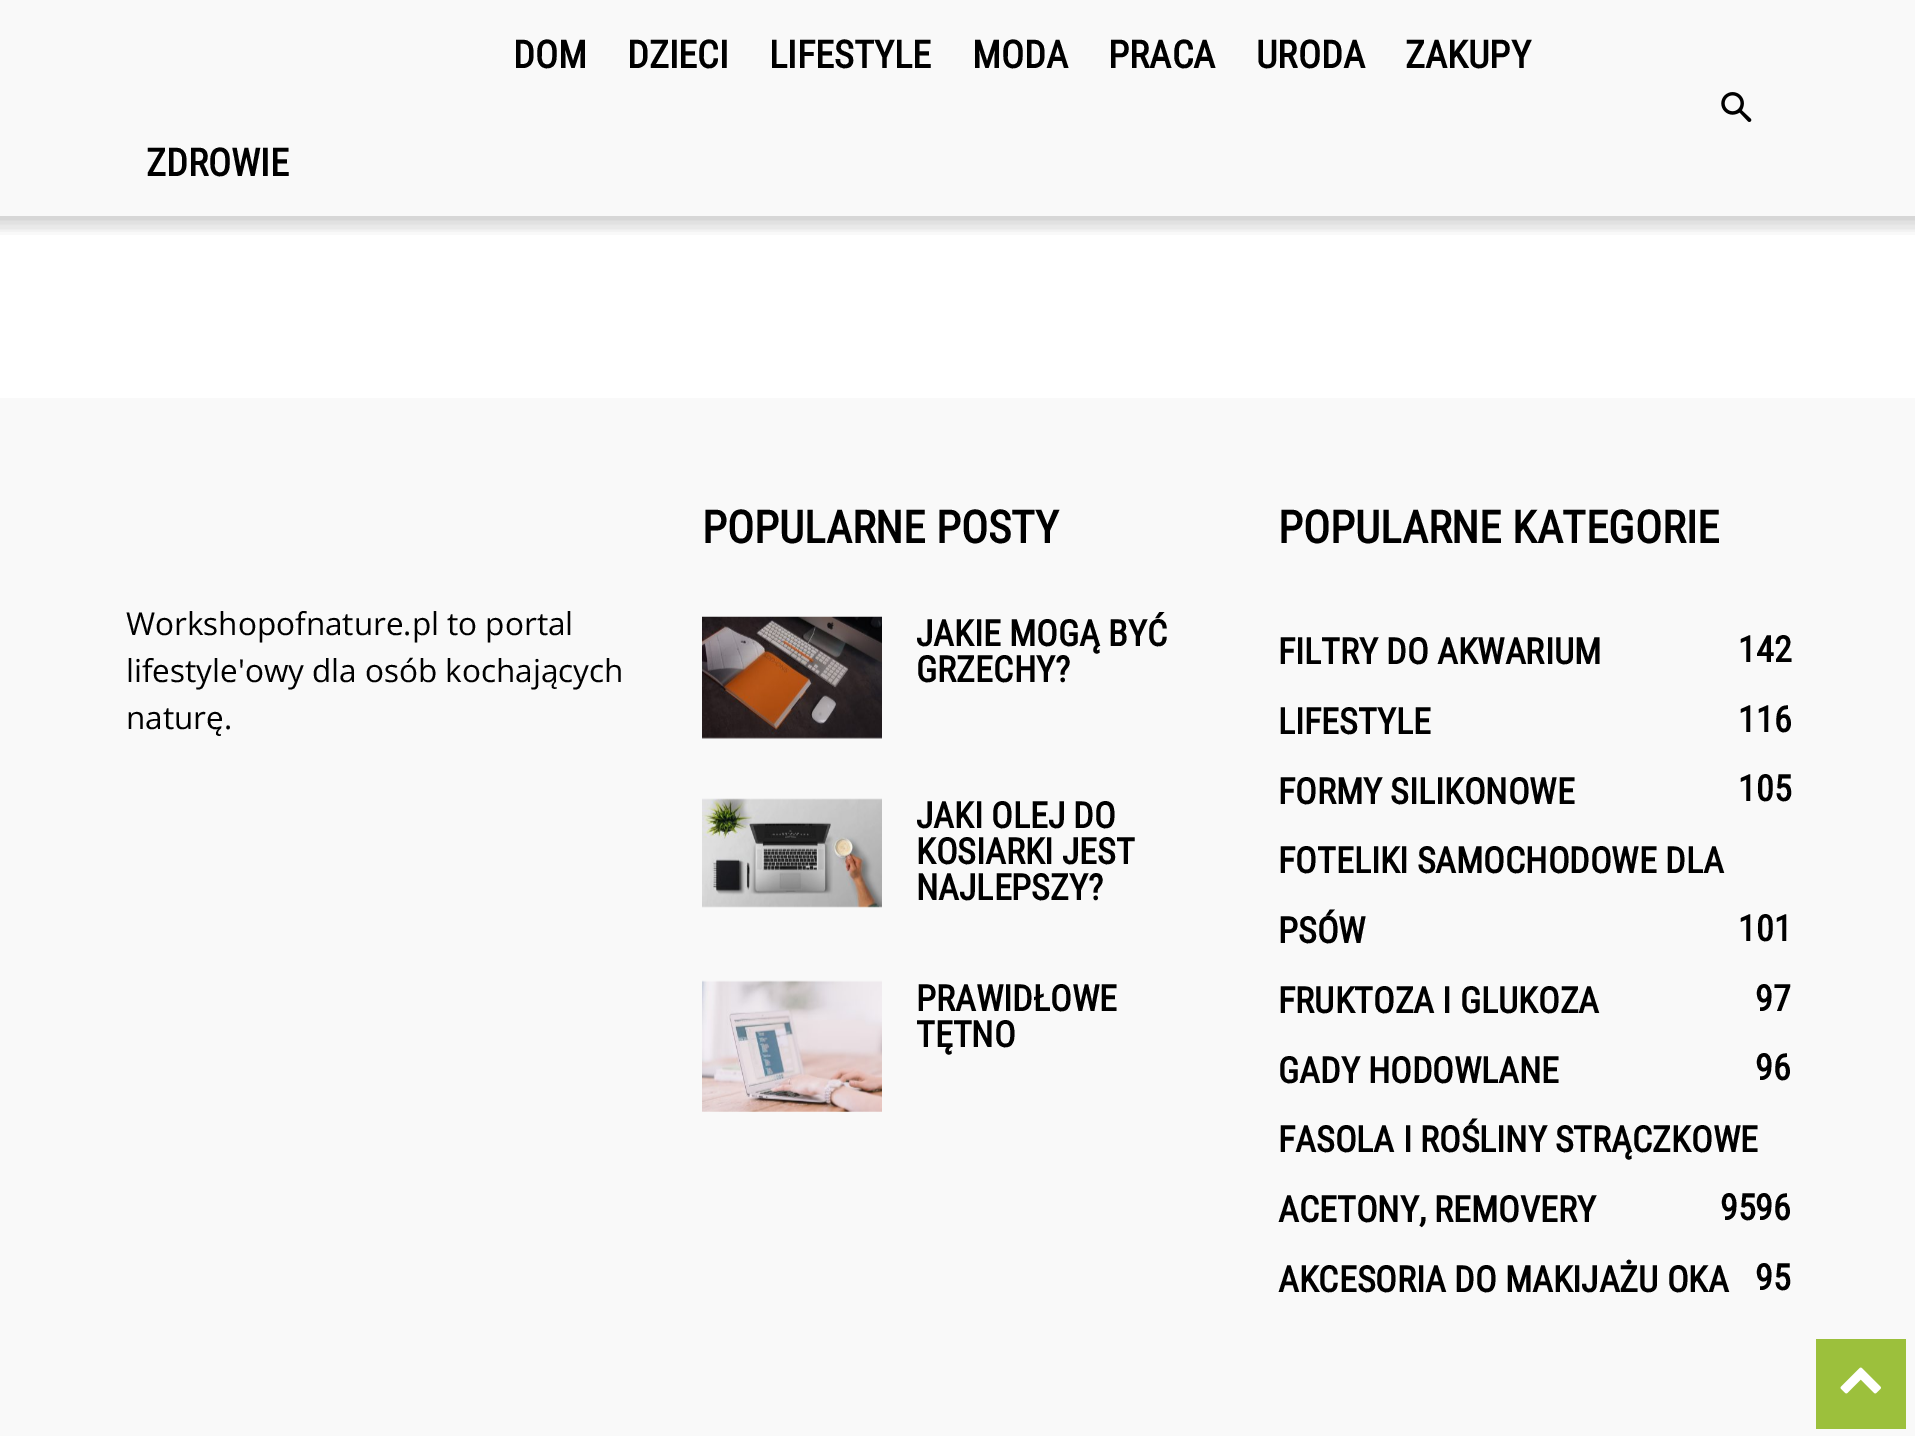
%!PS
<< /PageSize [1915 1436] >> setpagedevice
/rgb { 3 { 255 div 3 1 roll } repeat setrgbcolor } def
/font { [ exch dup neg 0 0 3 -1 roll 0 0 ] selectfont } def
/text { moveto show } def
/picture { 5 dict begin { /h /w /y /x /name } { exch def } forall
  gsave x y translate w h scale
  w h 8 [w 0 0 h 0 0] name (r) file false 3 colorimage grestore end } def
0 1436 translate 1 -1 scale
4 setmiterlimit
255 255 255 rgb
0 0 1915 1436 rectfill
249 249 249 rgb
0 0 1915 216 rectfill
(img_01.rgb) 1721 92 31 30 picture
(img_02.rgb) 0 216 1915 19 picture
(img_03.rgb) 0 216 1915 16 picture
0 398 1915 1038 rectfill
(img_04.rgb) 702 616 180 123 picture
(img_05.rgb) 702 798 180 110 picture
(img_06.rgb) 702 980 180 132 picture
156 192 60 rgb
1816 1339 90 90 rectfill
(img_07.rgb) 1840 1367 41 27 picture
/RobotoCondensed-Bold 38.25 font
0 0 0 rgb
(DOM) 513 68 text
(DZIECI) 627 68 text
(LIFESTYLE) 769 68 text
(MODA) 972 68 text
(PRACA) 1108 68 text
(URODA) 1256 68 text
(ZAKUPY) 1405 68 text
(ZDROWIE) 146 176 text
/OpenSans-Regular 31.5 font
(Workshopofnature.pl to portal) 126 635 text
(lifestyle'owy dla osób kochających) 126 682 text
(naturę.) 126 729 text
/RobotoCondensed-Bold 45 font
(POPULARNE POSTY) 702 543 text
/RobotoCondensed-Bold 36 font
(JAKIE MOGĄ BYĆ) 916 646 text
(GRZECHY?) 916 682 text
(JAKI OLEJ DO) 916 828 text
(KOSIARKI JEST) 916 864 text
(NAJLEPSZY?) 916 900 text
(PRAWIDŁOWE) 916 1011 text
(TĘTNO) 916 1047 text
/RobotoCondensed-Bold 45 font
(POPULARNE KATEGORIE) 1278 543 text
/RobotoCondensed-Bold 36 font
(FILTRY DO AKWARIUM) 1278 664 text
(142) 1738 662 text
(LIFESTYLE) 1278 734 text
(116) 1738 732 text
(FORMY SILIKONOWE) 1278 804 text
(105) 1738 801 text
(FOTELIKI SAMOCHODOWE DLA) 1278 873 text
(PSÓW) 1278 943 text
(101) 1738 941 text
(FRUKTOZA I GLUKOZA) 1278 1013 text
(97) 1755 1011 text
(GADY HODOWLANE) 1278 1083 text
(96) 1755 1080 text
(FASOLA I ROŚLINY STRĄCZKOWE) 1278 1152 text
(96) 1755 1220 text
(ACETONY, REMOVERY) 1278 1222 text
(95) 1720 1220 text
(AKCESORIA DO MAKIJAŻU OKA) 1278 1292 text
(95) 1755 1290 text
showpage
